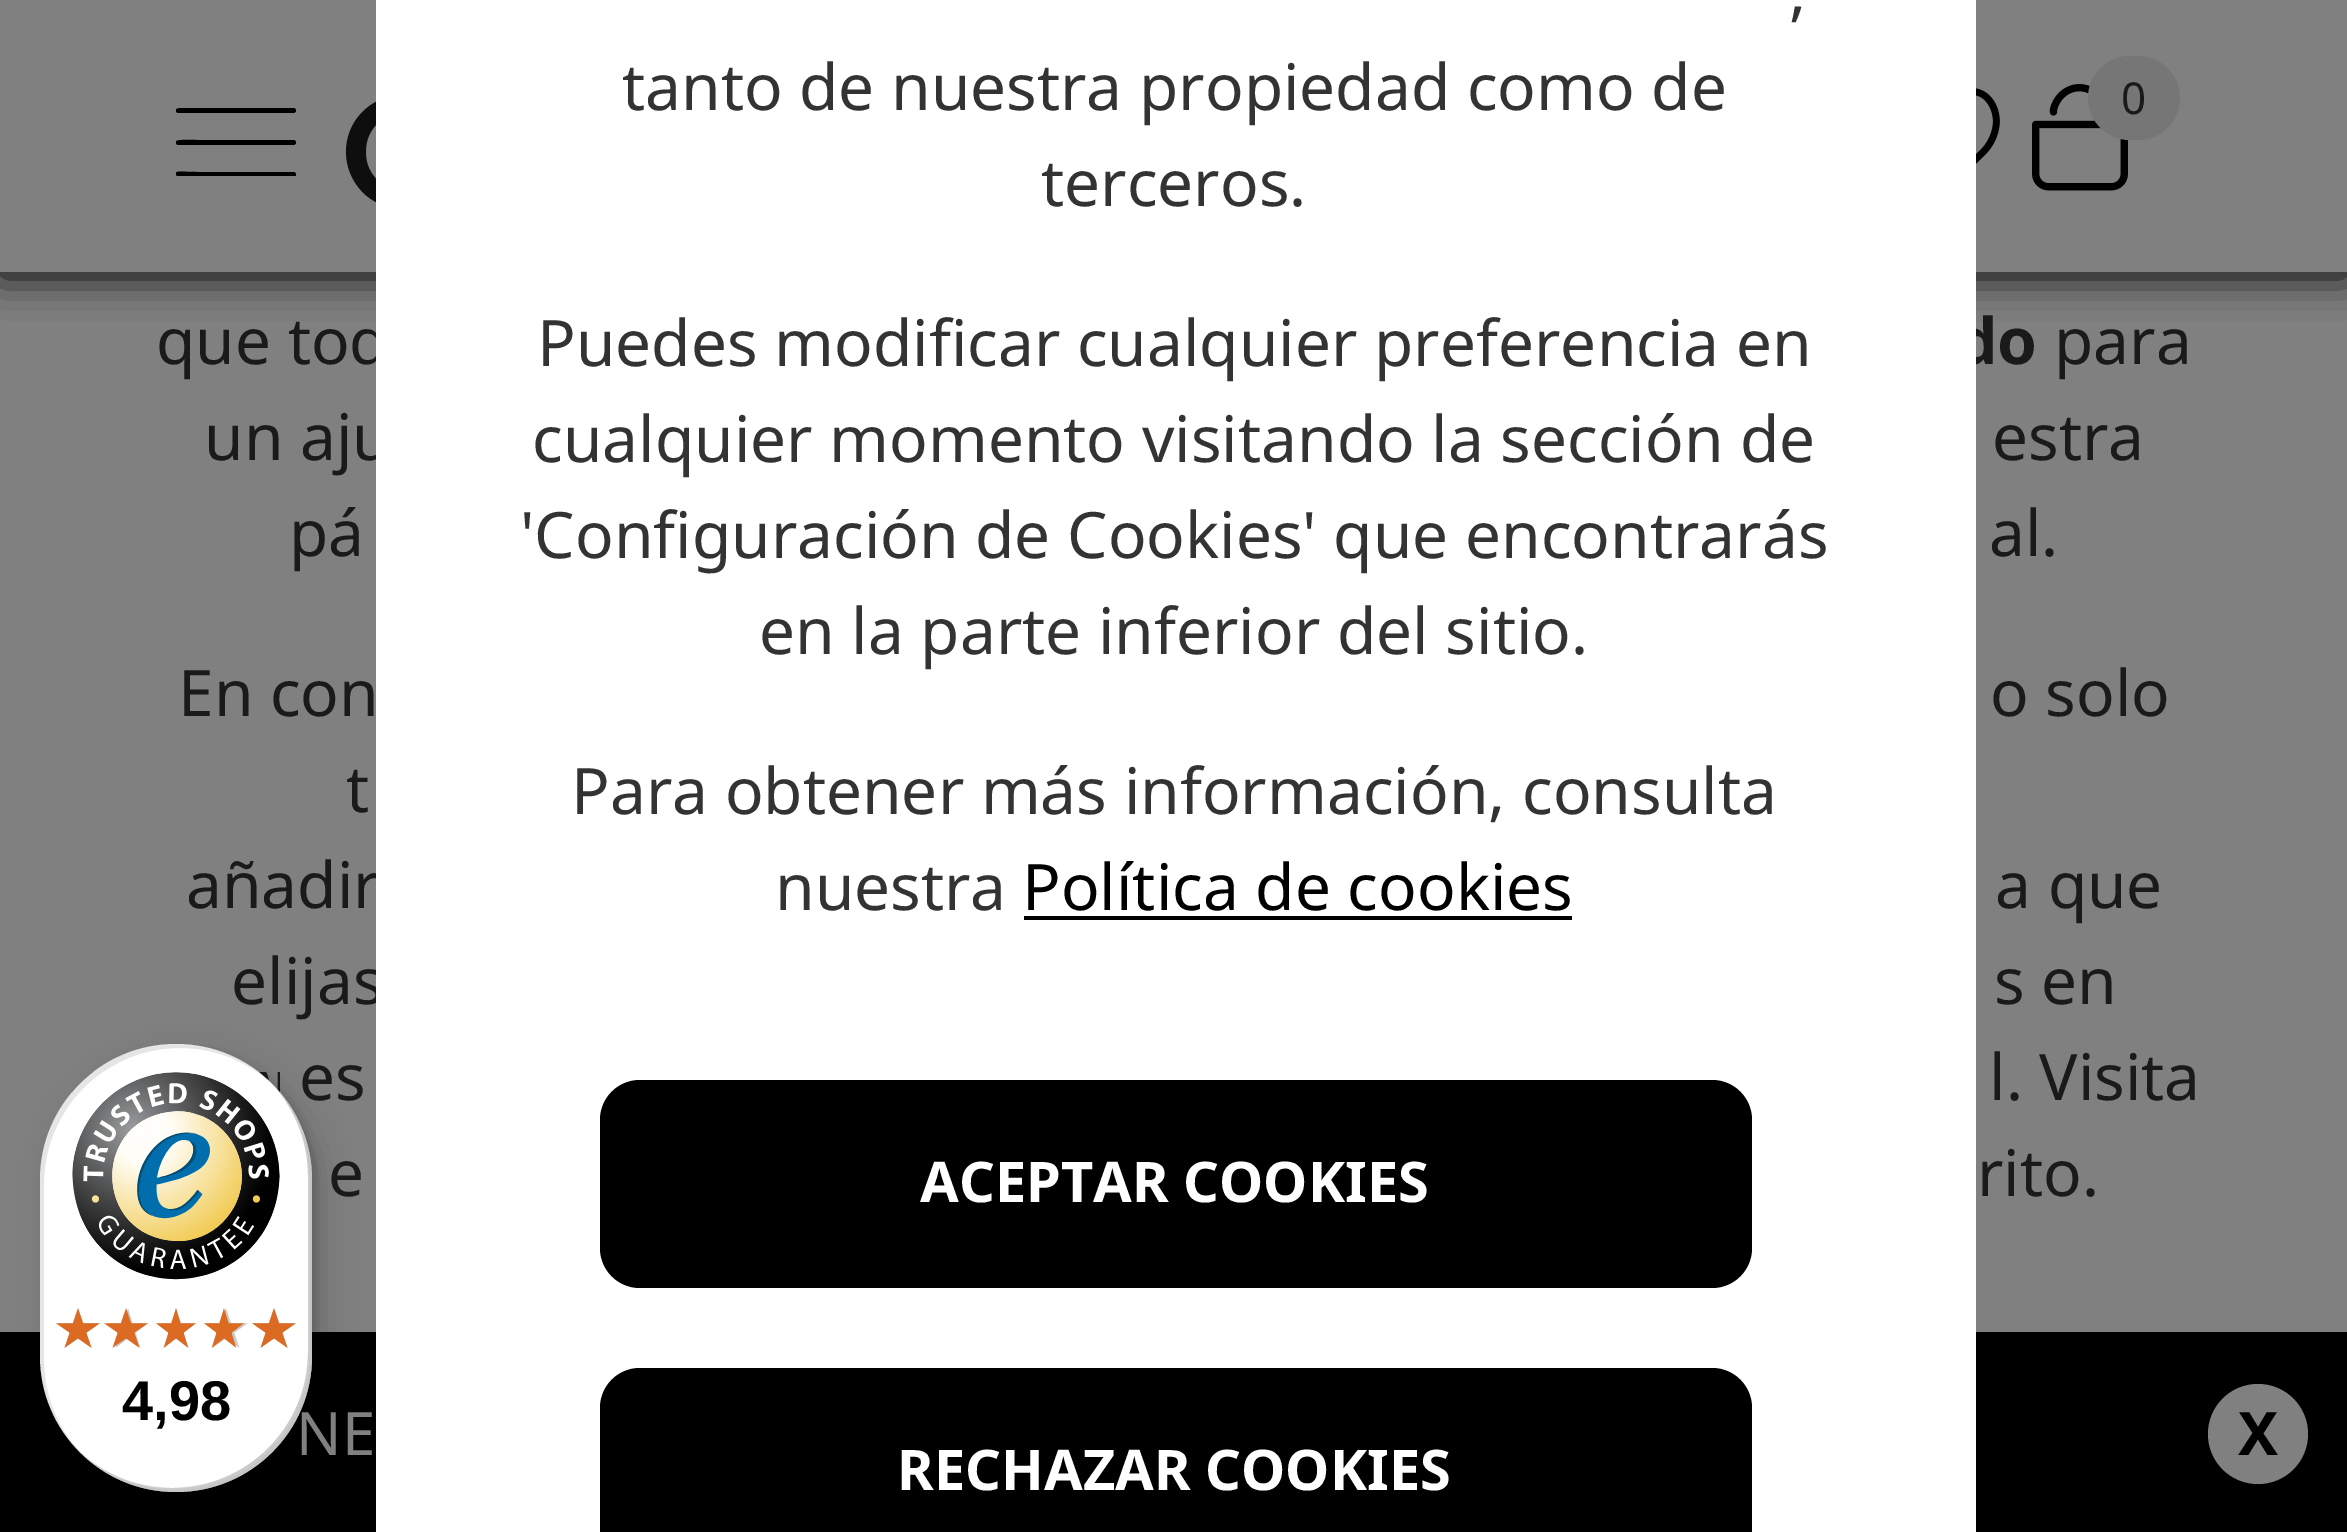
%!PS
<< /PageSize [2347 1532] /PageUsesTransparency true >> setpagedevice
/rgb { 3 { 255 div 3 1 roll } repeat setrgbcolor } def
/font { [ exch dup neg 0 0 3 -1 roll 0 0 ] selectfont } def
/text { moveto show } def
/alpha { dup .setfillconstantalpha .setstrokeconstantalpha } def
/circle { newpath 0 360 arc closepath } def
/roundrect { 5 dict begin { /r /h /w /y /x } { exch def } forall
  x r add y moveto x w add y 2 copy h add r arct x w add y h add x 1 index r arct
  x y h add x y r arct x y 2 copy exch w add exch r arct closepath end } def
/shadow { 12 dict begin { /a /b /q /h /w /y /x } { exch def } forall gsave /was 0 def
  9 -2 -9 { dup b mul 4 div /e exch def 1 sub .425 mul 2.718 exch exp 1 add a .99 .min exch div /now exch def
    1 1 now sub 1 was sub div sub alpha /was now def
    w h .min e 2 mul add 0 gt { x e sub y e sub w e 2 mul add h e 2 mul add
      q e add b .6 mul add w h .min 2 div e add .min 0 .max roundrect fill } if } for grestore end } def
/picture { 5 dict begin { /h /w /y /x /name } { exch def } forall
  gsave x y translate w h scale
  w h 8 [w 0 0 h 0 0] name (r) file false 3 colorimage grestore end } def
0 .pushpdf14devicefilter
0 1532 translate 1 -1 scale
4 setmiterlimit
128 128 128 rgb
0 0 2347 1532 rectfill
0 0 0 rgb
0 4 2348 272 0 20 1 shadow
128 128 128 rgb
0 0 2347 272 rectfill
gsave
176 108 120 68 rectclip
0 0 0 rgb
293 113 moveto -115 0 rlineto -2 -1 rlineto -2 -5 4 -4 22 -4 rcurveto 95 0 rlineto 4 0 4 5 0 5 rcurveto closepath fill
293 145 moveto -115 0 rlineto -2 -1 rlineto -2 -5 4 -4 22 -4 rcurveto 95 0 rlineto 4 0 4 5 0 5 rcurveto closepath fill
293 177 moveto -115 0 rlineto -2 -2 rlineto -2 -5 4 -3 22 -3 rcurveto 95 0 rlineto 4 0 4 5 0 5 rcurveto closepath fill
grestore
(img_01.rgb) 345 101 31 102 picture
(img_02.rgb) 1976 88 24 76 picture
(img_03.rgb) 2032 84 96 107 picture
118 118 118 rgb
2088 56 92 84 42 roundrect fill
0 0 0 rgb
0 1332 2347 200 rectfill
52 1056 272 448 136 16 0.15 shadow
44 1048 272 448 136 4 0.15 shadow
128 128 128 rgb
2258 1434 50 circle fill
/NotoSans-Regular 44 font
26 26 26 rgb
(0) 2121 114 text
/NotoSans-Regular 64 font
(que tod) 156 364 text
/NotoSans-Bold 64 font
(do) 1957 364 text
/NotoSans-Regular 64 font
(para) 2054 364 text
(un aju) 204 460 text
(estra) 1992 460 text
(pá) 289 556 text
(al.) 1989 556 text
(En con) 178 716 text
(o solo) 1990 716 text
(t) 346 812 text
(añadir) 186 908 text
(a que) 1995 908 text
(elijas) 231 1004 text
255 255 255 rgb
376 0 1600 1532 rectfill
0 0 0 rgb
600 1368 1152 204 40 roundrect fill
/NotoSans-Bold 56 font
255 255 255 rgb
(RECHAZAR COOKIES) 897 1490 text
0 0 0 rgb
600 1080 1152 208 40 roundrect fill
255 255 255 rgb
(ACEPTAR COOKIES) 920 1202 text
/NotoSans-Regular 64 font
0 0 0 rgb
(Política de cookies) 1022 910 text
1024 916 548 4 rectfill
51 51 51 rgb
(nuestra) 775 910 text
(Para obtener más información, consulta) 571 814 text
(en la parte inferior del sitio.) 759 654 text
('Configuración de Cookies' que encontrarás) 520 558 text
(cualquier momento visitando la sección de) 532 462 text
(Puedes modificar cualquier preferencia en) 537 366 text
(terceros.) 1041 206 text
(tanto de nuestra propiedad como de) 622 110 text
(,) 1789 14 text
26 26 26 rgb
(s en) 1994 1004 text
(es) 299 1100 text
(l. Visita) 1989 1100 text
(e) 328 1196 text
(rito.) 1977 1196 text
/NotoSans-Regular 60 font
128 128 128 rgb
(NE) 296 1455 text
255 255 255 rgb
40 1044 272 448 136 roundrect fill
0.1 alpha
0 0 0 rgb
180 1048 moveto 37 0 71 15 95 39 rcurveto -25 -27 -60 -43 -99 -43 rcurveto -75 0 -136 61 -136 136 rcurveto 0 176 rlineto 0 39 16 74 43 99 rcurveto -24 -24 -39 -58 -39 -95 rcurveto 0 -176 rlineto 0 -75 61 -136 136 -136 rcurveto closepath fill
0.2 alpha
77 1449 moveto 25 27 60 43 99 43 rcurveto 75 0 136 -61 136 -136 rcurveto 0 -176 rlineto 0 -39 -16 -74 -43 -99 rcurveto 24 24 39 58 39 95 rcurveto 0 176 rlineto 0 75 -61 136 -136 136 rcurveto -37 0 -71 -15 -95 -39 rcurveto closepath fill
50 50 50 rgb
86 1458 moveto 24 21 56 34 90 34 rcurveto 75 0 136 -61 136 -136 rcurveto 0 -176 rlineto 0 -34 -13 -66 -34 -90 rcurveto 20 24 32 54 32 88 rcurveto 0 176 rlineto 0 75 -61 136 -136 136 rcurveto -34 0 -64 -12 -88 -32 rcurveto closepath fill
0.3 alpha
255 255 255 rgb
77 1449 moveto 25 27 60 43 99 43 rcurveto 75 0 136 -61 136 -136 rcurveto 0 -176 rlineto 0 -39 -16 -74 -43 -99 rcurveto 25 25 41 59 41 97 rcurveto 0 176 rlineto 0 75 -61 136 -136 136 rcurveto -38 0 -72 -16 -97 -41 rcurveto closepath fill
1 alpha
(img_08.rgb) 252 1308 44 40 picture
(img_13.rgb) 252 1308 44 40 picture
(img_08.rgb) 204 1308 44 40 picture
(img_12.rgb) 204 1308 40 40 picture
(img_07.rgb) 156 1308 40 40 picture
(img_11.rgb) 156 1308 40 40 picture
(img_06.rgb) 108 1308 40 40 picture
(img_10.rgb) 104 1308 44 40 picture
(img_05.rgb) 56 1308 44 40 picture
(img_09.rgb) 56 1308 44 40 picture
/LiberationSans-Bold 56 font
0 0 0 rgb
(4,98) 122 1420 text
(img_04.rgb) 72 1072 208 208 picture
/NotoSans-Bold 60 font
(X) 2238 1455 text
.poppdf14devicefilter showpage
